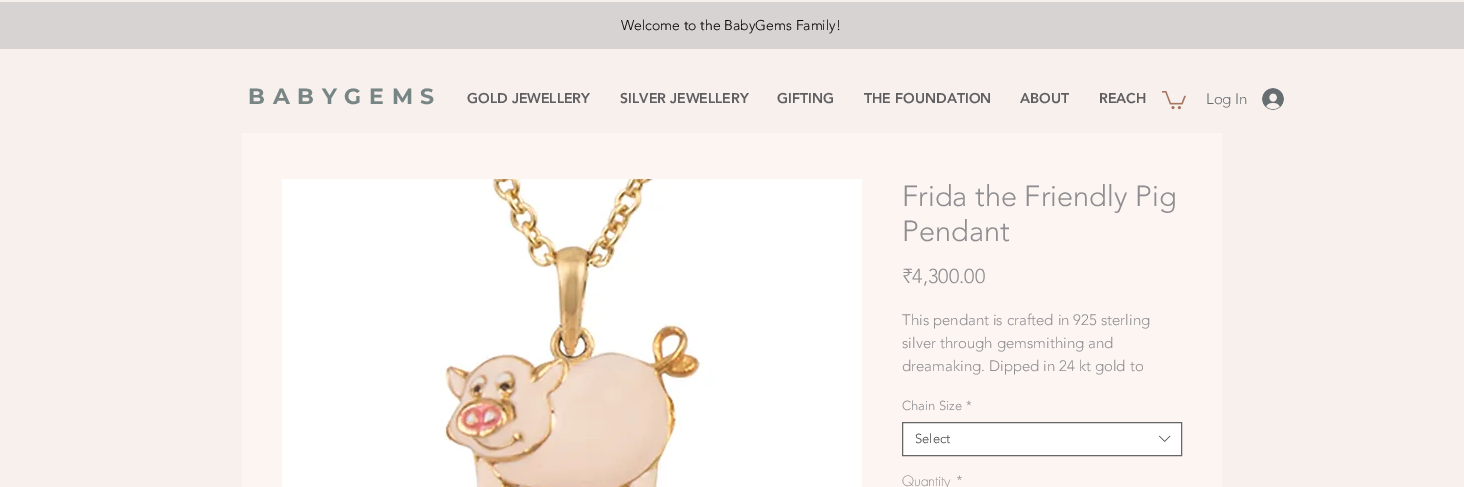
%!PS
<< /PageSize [1464 487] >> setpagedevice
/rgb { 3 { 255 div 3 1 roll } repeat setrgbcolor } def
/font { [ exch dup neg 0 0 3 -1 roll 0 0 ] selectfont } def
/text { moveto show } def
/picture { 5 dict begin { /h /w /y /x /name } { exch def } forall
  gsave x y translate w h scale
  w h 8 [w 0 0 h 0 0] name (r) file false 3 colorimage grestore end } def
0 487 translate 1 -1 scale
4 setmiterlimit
247 240 237 rgb
0 0 1464 487 rectfill
215 211 210 rgb
0 2 1464 47 rectfill
(img_01.rgb) 1162 91 24 19 picture
(img_02.rgb) 1262 88 22 22 picture
252 245 242 rgb
242 133 980 354 rectfill
(img_03.rgb) 282 179 580 308 picture
255 255 255 rgb
902.5 422.5 moveto 279 0 rlineto 0 33 rlineto -279 0 rlineto closepath gsave fill grestore
102 102 102 rgb
stroke
(img_04.rgb) 1159 435 12 7 picture
/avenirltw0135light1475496-Light 14 font
0 0 0 rgb
(Welcome to the BabyGems Family!) 621 30 text
/Montserrat-Bold 22 font
119 134 132 rgb
248 104 moveto 7.75 0 (BABYGEMS) ashow
/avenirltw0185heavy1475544-Black 14 font
95 94 97 rgb
(GOLD JEWELLERY) 467 103 text
(SILVER JEWELLERY) 620 103 text
(GIFTING) 777 103 text
(THE FOUNDATION) 864 103 text
(ABOUT) 1020 103 text
(REACH) 1099 103 text
/avenirltw0135light1475496-Light 15 font
103 110 113 rgb
(Log In) 1206 104 text
/avenirltw0135light1475496-Light 29 font
142 141 145 rgb
(Frida the Friendly Pig) 902 206 text
(Pendant) 902 241 text
/avenirltw0135light1475496-Light 20 font
(₹4,300.00) 902 283 text
/avenirltw0135light1475496-Light 15 font
(This pendant is crafted in 925 sterling) 902 325 text
(silver through gemsmithing and) 902 348 text
(dreamaking. Dipped in 24 kt gold to) 902 371 text
/avenirltw0135light1475496-Light 13 font
(Chain Size) 902 410 text
(*) 966 410 text
68 68 68 rgb
(Select) 915 443 text
/futura-Light 14 font
142 141 145 rgb
(Quantity) 902 486 text
(*) 955 486 text
showpage
